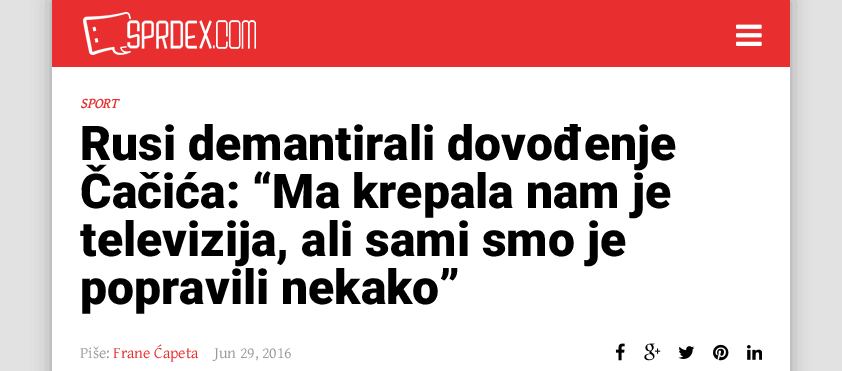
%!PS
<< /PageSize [842 371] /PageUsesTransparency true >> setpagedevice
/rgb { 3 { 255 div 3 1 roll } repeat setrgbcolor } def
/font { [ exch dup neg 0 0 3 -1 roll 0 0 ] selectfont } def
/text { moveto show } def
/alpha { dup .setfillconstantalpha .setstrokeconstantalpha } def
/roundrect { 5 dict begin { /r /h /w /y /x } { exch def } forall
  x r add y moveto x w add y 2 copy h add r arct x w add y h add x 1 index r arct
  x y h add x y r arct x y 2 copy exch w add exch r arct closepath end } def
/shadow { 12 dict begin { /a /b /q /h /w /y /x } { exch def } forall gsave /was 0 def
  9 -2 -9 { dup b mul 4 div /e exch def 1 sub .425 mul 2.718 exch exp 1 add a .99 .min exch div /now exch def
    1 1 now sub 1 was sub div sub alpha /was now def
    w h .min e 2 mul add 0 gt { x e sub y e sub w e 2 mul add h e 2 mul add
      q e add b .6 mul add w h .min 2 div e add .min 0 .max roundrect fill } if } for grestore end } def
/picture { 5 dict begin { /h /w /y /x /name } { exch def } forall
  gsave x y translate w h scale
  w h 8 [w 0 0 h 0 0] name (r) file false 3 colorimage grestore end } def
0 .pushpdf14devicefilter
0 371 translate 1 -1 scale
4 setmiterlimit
226 226 226 rgb
0 0 842 371 rectfill
0 0 0 rgb
52 0 738 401 0 10 0.3 shadow
255 255 255 rgb
52 67 738 304 rectfill
232 46 46 rgb
52 0 738 67 rectfill
(img_01.rgb) 83 12 173 43 picture
(img_02.rgb) 736 24 26 22 picture
(img_03.rgb) 615 343 10 18 picture
(img_04.rgb) 644 343 17 18 picture
(img_05.rgb) 678 346 17 13 picture
(img_06.rgb) 713 344 16 17 picture
(img_07.rgb) 747 345 15 15 picture
/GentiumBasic-BoldItalic 14 font
(SPORT) 80 108 text
/Roboto-Black 48 font
0 0 0 rgb
(Rusi demantirali dovođenje) 80 160 text
(Čačića: “Ma krepala nam je) 80 208 text
(televizija, ali sami smo je) 80 256 text
(popravili nekako”) 80 304 text
/GentiumBasic-Regular 16 font
153 153 153 rgb
(Piše:) 80 358 text
232 46 46 rgb
(Frane Ćapeta) 113 358 text
153 153 153 rgb
(Jun 29, 2016) 214 358 text
.poppdf14devicefilter showpage
